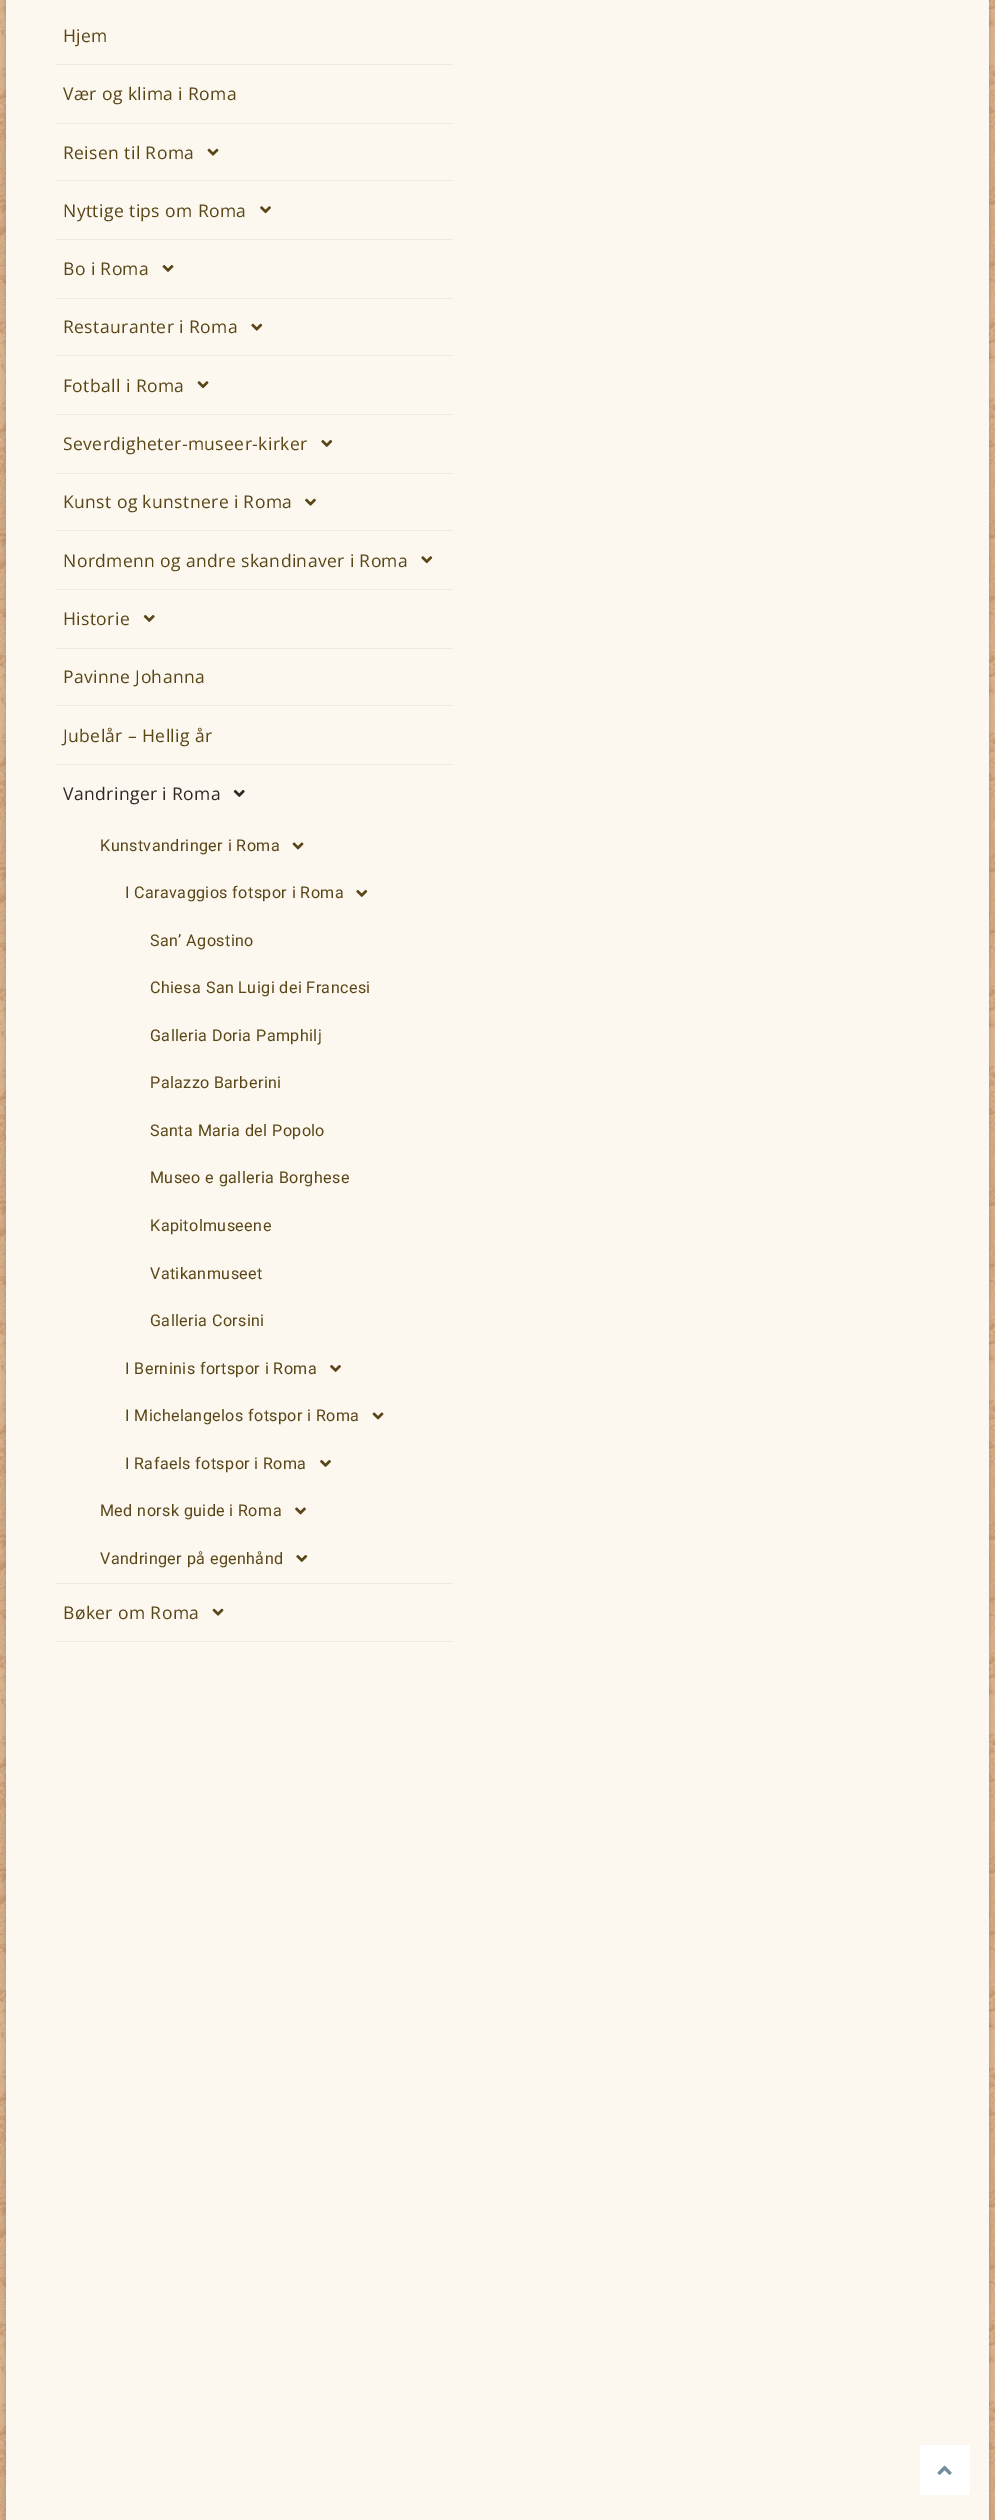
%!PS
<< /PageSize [995 2520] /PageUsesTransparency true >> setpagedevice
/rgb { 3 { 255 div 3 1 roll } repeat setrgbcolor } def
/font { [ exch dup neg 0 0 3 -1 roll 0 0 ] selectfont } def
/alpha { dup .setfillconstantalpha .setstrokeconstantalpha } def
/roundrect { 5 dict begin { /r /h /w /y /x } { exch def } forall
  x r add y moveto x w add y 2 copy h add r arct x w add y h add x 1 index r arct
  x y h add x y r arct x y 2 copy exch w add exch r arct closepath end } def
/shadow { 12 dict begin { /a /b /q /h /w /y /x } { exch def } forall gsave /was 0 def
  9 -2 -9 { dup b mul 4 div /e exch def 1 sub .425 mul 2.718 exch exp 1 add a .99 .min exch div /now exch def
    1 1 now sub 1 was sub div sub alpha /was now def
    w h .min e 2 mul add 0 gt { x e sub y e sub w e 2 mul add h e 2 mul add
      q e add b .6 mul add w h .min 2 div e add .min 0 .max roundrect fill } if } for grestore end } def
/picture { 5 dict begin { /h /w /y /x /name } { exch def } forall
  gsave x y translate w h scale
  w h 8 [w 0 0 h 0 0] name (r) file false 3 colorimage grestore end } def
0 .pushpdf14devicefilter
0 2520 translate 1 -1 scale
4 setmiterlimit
255 255 255 rgb
0 0 995 2520 rectfill
(img_01.rgb) 0 0 995 2520 picture
0 0 0 rgb
6 -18 983 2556 10 2.5 0.15 shadow
252 248 239 rgb
6 0 983 2520 rectfill
237 233 225 rgb
56 64 397 1 rectfill
56 123 397 1 rectfill
56 180 397 1 rectfill
(img_02.rgb) 207 148 12 8 picture
56 239 397 1 rectfill
(img_03.rgb) 260 206 11 8 picture
56 298 397 1 rectfill
(img_04.rgb) 162 265 12 7 picture
56 355 397 1 rectfill
(img_05.rgb) 251 323 12 8 picture
56 414 397 1 rectfill
(img_06.rgb) 197 381 12 8 picture
56 473 397 1 rectfill
(img_07.rgb) 321 440 12 7 picture
56 530 397 1 rectfill
(img_08.rgb) 305 498 11 8 picture
56 589 397 1 rectfill
(img_09.rgb) 421 556 12 8 picture
56 648 397 1 rectfill
(img_10.rgb) 143 615 12 7 picture
56 705 397 1 rectfill
56 764 397 1 rectfill
56 1583 397 1 rectfill
(img_11.rgb) 233 790 12 7 picture
(img_12.rgb) 292 842 12 8 picture
(img_07.rgb) 356 890 12 7 picture
(img_13.rgb) 330 1365 11 7 picture
(img_12.rgb) 372 1412 12 8 picture
(img_13.rgb) 320 1460 11 7 picture
(img_14.rgb) 295 1507 11 8 picture
(img_07.rgb) 296 1555 12 7 picture
56 1641 397 1 rectfill
(img_02.rgb) 212 1608 12 8 picture
255 255 255 rgb
920 2445 50 50 2.5 roundrect fill
(img_15.rgb) 937 2465 15 10 picture
/OpenSans-Regular 17.5 font
89 69 22 rgb
63 42 moveto 0.4 0 (Hjem) ashow
63 100 moveto 0.4 0 (Vær og klima i Roma) ashow
63 159 moveto 0.4 0 (Reisen til Roma) ashow
63 217 moveto 0.4 0 (Nyttige tips om Roma) ashow
63 275 moveto 0.4 0 (Bo i Roma) ashow
63 333 moveto 0.4 0 (Restauranter i Roma) ashow
63 392 moveto 0.4 0 (Fotball i Roma) ashow
63 450 moveto 0.4 0 (Severdigheter-museer-kirker) ashow
63 508 moveto 0.4 0 (Kunst og kunstnere i Roma) ashow
63 567 moveto 0.4 0 (Nordmenn og andre skandinaver i Roma) ashow
63 625 moveto 0.4 0 (Historie) ashow
63 683 moveto 0.4 0 (Pavinne Johanna) ashow
63 742 moveto 0.4 0 (Jubelår – Hellig år) ashow
48 38 36 rgb
63 800 moveto 0.4 0 (Vandringer i Roma) ashow
/Roboto-Regular 16.1 font
89 69 22 rgb
100 851 moveto 0.4 0 (Kunstvandringer i Roma) ashow
125 898 moveto 0.4 0 (I Caravaggios fotspor i Roma) ashow
150 946 moveto 0.4 0 (San’ Agostino) ashow
150 993 moveto 0.4 0 (Chiesa San Luigi dei Francesi) ashow
150 1041 moveto 0.4 0 (Galleria Doria Pamphilj) ashow
150 1088 moveto 0.4 0 (Palazzo Barberini) ashow
150 1136 moveto 0.4 0 (Santa Maria del Popolo) ashow
150 1183 moveto 0.4 0 (Museo e galleria Borghese) ashow
150 1231 moveto 0.4 0 (Kapitolmuseene) ashow
150 1279 moveto 0.4 0 (Vatikanmuseet) ashow
150 1326 moveto 0.4 0 (Galleria Corsini) ashow
125 1374 moveto 0.4 0 (I Berninis fortspor i Roma) ashow
125 1421 moveto 0.4 0 (I Michelangelos fotspor i Roma) ashow
125 1469 moveto 0.4 0 (I Rafaels fotspor i Roma) ashow
100 1516 moveto 0.4 0 (Med norsk guide i Roma) ashow
100 1564 moveto 0.4 0 (Vandringer på egenhånd) ashow
/OpenSans-Regular 17.5 font
63 1619 moveto 0.4 0 (Bøker om Roma) ashow
.poppdf14devicefilter showpage
